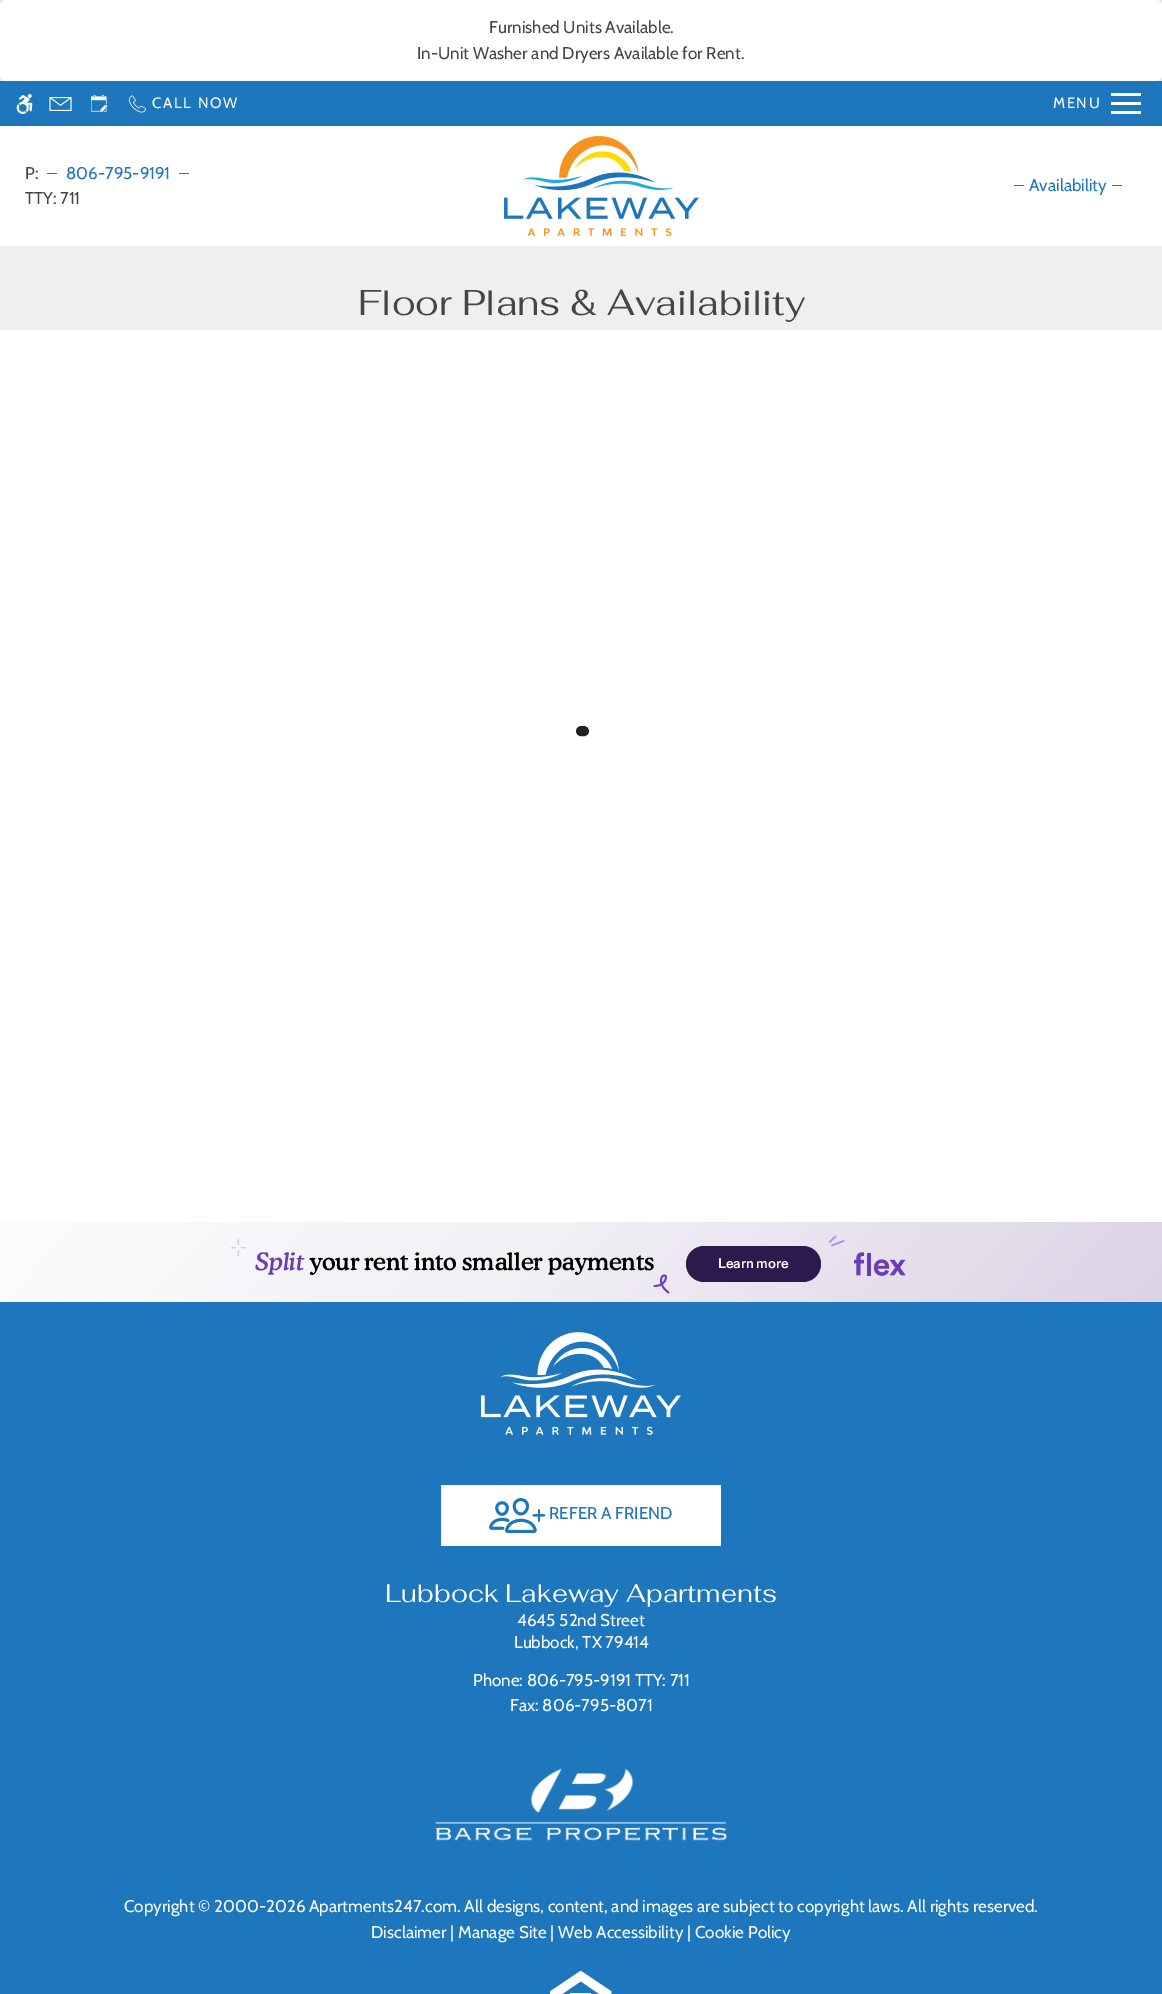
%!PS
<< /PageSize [1162 1994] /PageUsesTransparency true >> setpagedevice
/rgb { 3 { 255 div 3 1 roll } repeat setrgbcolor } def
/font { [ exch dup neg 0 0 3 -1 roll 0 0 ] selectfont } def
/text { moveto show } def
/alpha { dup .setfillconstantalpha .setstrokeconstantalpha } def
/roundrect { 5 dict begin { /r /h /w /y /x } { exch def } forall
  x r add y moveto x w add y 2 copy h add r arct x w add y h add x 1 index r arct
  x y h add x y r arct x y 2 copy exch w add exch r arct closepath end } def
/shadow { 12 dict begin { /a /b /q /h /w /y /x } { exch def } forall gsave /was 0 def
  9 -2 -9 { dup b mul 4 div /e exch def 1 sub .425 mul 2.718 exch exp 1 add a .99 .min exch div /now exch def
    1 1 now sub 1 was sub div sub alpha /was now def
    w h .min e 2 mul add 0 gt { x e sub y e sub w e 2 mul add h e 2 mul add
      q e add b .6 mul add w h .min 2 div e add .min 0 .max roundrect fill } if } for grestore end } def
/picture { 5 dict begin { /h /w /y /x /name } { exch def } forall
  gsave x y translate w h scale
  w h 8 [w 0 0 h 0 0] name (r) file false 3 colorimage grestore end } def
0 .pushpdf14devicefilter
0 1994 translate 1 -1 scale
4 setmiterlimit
239 239 239 rgb
0 0 1162 1994 rectfill
0 0 0 rgb
0 0 1162 81 6 9 0.1 shadow
255 255 255 rgb
0 0 1162 81 6 roundrect fill
30 119 188 rgb
0 81 1162 45 rectfill
(img_01.rgb) 16 94 17 20 picture
(img_02.rgb) 49 97 23 14 picture
(img_03.rgb) 91 95 17 17 picture
(img_04.rgb) 129 95 17 18 picture
255 255 255 rgb
1111 93 30 3 rectfill
1111 102 30 3 rectfill
1111 111 30 3 rectfill
0 126 1162 120 rectfill
30 119 188 rgb
47 173 10 1 rectfill
179 173 10 1 rectfill
(img_05.rgb) 504 136 195 100 picture
1014 185 10 1 rectfill
1112 185 10 1 rectfill
255 255 255 rgb
0 330 1162 892 rectfill
34 34 34 rgb
10 setlinewidth
1 setlinecap
581 731 moveto 3 0 rlineto stroke
gsave 0 1222 moveto 1162 0 rlineto 0 80 rlineto -1162 0 rlineto closepath clip newpath
<< /ShadingType 2 /ColorSpace /DeviceRGB /Coords [994 1661 201 895] /Extend [true true] /Function << /FunctionType 3 /Domain [0 1] /Functions [<< /FunctionType 2 /Domain [0 1] /C0 [0.839 0.796 0.882] /C1 [0.949 0.937 0.961] /N 1 >> << /FunctionType 2 /Domain [0 1] /C0 [0.949 0.937 0.961] /C1 [1 1 1] /N 1 >>] /Bounds [0.55] /Encode [0 1 0 1] >> >> shfill grestore
(img_06.rgb) 231 1238 15 19 picture
178 140 244 rgb
1.6 setlinewidth
1 setlinejoin
829.5 1242 moveto 6 -5.5 rlineto 832 1245.5 moveto 11.5 -4.5 rlineto stroke
44 25 77 rgb
686 1246 135 36 18 roundrect fill
(img_07.rgb) 854 1252 52 24 picture
30 119 188 rgb
0 1302 1162 692 rectfill
(img_08.rgb) 481 1332 200 103 picture
255 255 255 rgb
441 1485 280 61 rectfill
(img_09.rgb) 489 1498 56 35 picture
(img_10.rgb) 435 1768 292 73 picture
(img_11.rgb) 550 1971 62 23 picture
/Cabin-Regular 17 font
69 69 65 rgb
(Furnished Units Available.) 489 33 text
(In-Unit Washer and Dryers Available for Rent.) 417 59 text
/Cabin-Regular 15 font
255 255 255 rgb
152 108 moveto 1.75 0 (CALL NOW) ashow
1053 108 moveto 1.5 0 (MENU) ashow
/Cabin-Regular 17 font
69 69 65 rgb
(P:) 25 179 text
30 119 188 rgb
(806-795-9191) 66 179 text
69 69 65 rgb
(TTY: 711) 25 204 text
30 119 188 rgb
(Availability) 1029 191 text
/Fahkwang-Regular 35.75 font
69 69 65 rgb
(Floor Plans & Availability) 358 315 text
/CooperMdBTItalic-Italic 24 font
106 61 184 rgb
255 1270 moveto -0.25 0 (Split) ashow
/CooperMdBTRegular-Regular 24 font
0 0 0 rgb
310 1270 moveto -0.25 0 (your rent into smaller payments) ashow
106 61 184 rgb
1.8 setlinewidth
0 setlinejoin
654.5 1286 moveto 2.5 0 8 -0.5 10.5 -5.5 rcurveto 3.5 -6.5 -3.5 -7 -4 -0.5 rcurveto -0.5 5.5 4 10 7.5 12.5 rcurveto stroke
/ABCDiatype-Bold 14 font
247 247 247 rgb
718 1268 moveto -0.1 0 (Learn more) ashow
/Cabin-Regular 17 font
30 119 188 rgb
(REFER A FRIEND) 549 1519 text
/Fahkwang-Regular 25.5 font
255 255 255 rgb
(Lubbock Lakeway Apartments) 385 1602 text
/Cabin-Regular 17 font
(4645 52nd Street) 517 1626 text
(Lubbock, TX 79414) 514 1648 text
(Phone: 806-795-9191 TTY: 711) 473 1686 text
(Fax: 806-795-8071) 510 1711 text
(Copyright © 2000-2026 Apartments247.com. All designs, content, and images are subject to copyright laws. All rights reserved.) 124 1912 text
(Disclaimer | Manage Site | Web Accessibility | Cookie Policy) 371 1938 text
.poppdf14devicefilter showpage
